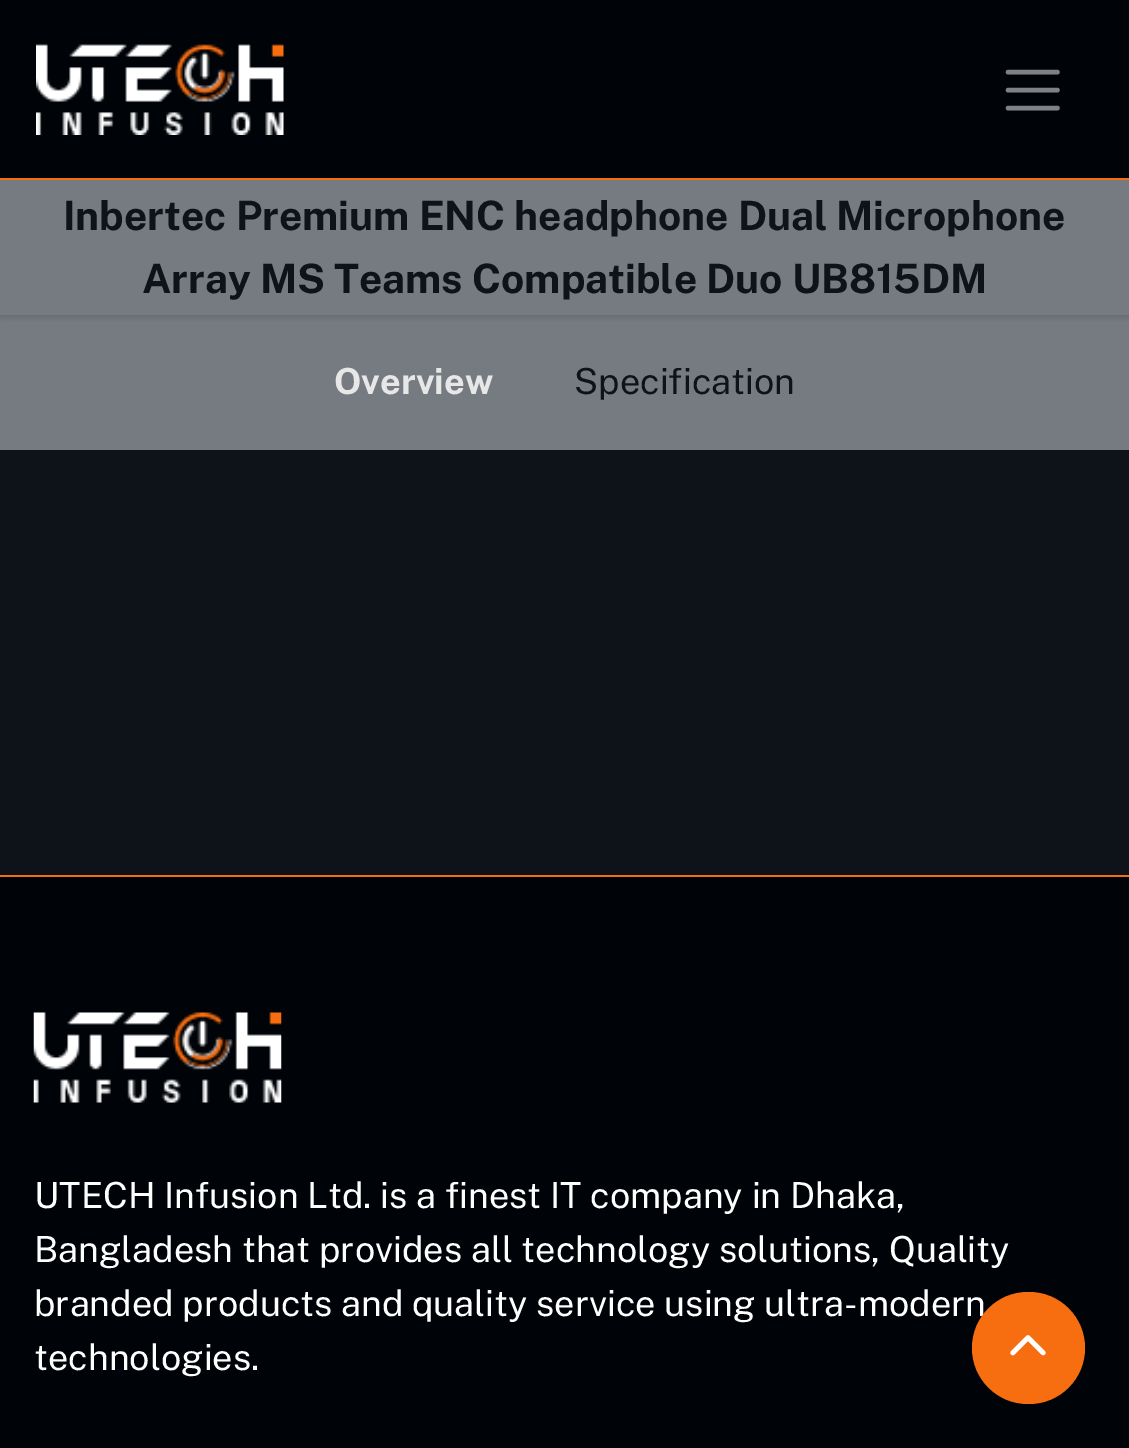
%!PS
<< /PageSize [1129 1448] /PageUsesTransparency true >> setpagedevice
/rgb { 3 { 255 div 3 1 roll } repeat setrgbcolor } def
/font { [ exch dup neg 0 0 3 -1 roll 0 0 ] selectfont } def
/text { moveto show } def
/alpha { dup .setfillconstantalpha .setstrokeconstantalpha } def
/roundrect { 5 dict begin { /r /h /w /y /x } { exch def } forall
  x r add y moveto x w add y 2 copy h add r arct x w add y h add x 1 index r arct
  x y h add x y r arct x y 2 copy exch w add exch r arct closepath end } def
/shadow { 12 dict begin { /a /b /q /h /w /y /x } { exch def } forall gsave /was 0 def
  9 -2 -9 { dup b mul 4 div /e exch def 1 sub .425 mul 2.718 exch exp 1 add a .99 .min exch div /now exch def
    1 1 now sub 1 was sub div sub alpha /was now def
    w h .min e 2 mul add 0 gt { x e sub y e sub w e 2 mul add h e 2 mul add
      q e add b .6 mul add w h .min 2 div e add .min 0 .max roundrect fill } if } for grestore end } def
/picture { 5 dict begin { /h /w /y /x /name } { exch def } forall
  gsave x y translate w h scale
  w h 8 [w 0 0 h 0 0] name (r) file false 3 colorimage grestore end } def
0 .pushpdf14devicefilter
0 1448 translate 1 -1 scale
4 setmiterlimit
14 19 26 rgb
0 0 1129 1448 rectfill
117 123 128 rgb
0 180 1129 270 rectfill
gsave
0 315 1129 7 rectclip
1 2 3 rgb
0 182 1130 135 0 4.5 0.16 shadow
grestore
0 3 8 rgb
0 0 1129 178 rectfill
247 110 17 rgb
0 178 1129 2 rectfill
(img_01.rgb) 36 44 248 91 picture
128 129 132 rgb
4.5 setlinewidth
1 setlinecap
1008 72 moveto 49.5 0 rlineto 1008 90 moveto 49.5 0 rlineto 1008 108 moveto 49.5 0 rlineto stroke
0 3 8 rgb
0 877 1129 571 rectfill
247 110 17 rgb
0 875 1129 2 rectfill
(img_02.rgb) 33 1012 249 91 picture
/PublicSans-Bold 40.5 font
14 19 26 rgb
(Inbertec Premium ENC headphone Dual Microphone) 63 230 text
(Array MS Teams Compatible Duo UB815DM) 142 293 text
/PublicSans-Bold 36 font
231 231 232 rgb
(Overview) 334 394 text
/PublicSans-Regular 36 font
14 19 26 rgb
(Specification) 574 394 text
255 255 255 rgb
(UTECH Infusion Ltd. is a finest IT company in Dhaka,) 34 1208 text
(Bangladesh that provides all technology solutions, Quality) 34 1262 text
(branded products and quality service using ultra-modern) 34 1316 text
(technologies.) 34 1370 text
247 110 17 rgb
972 1292 113 112 56 roundrect fill
(img_03.rgb) 1010 1335 36 21 picture
.poppdf14devicefilter showpage
